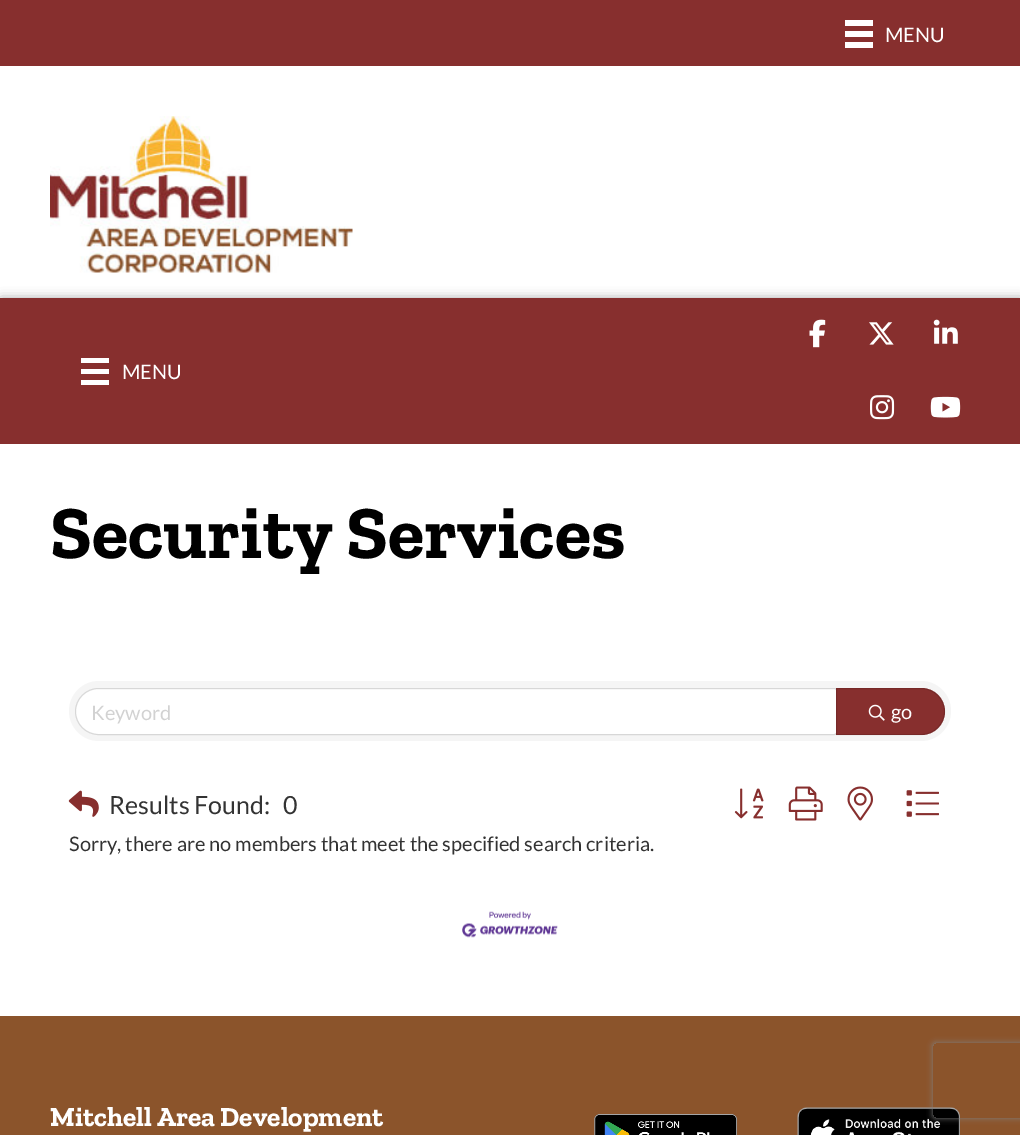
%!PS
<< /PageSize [1020 1135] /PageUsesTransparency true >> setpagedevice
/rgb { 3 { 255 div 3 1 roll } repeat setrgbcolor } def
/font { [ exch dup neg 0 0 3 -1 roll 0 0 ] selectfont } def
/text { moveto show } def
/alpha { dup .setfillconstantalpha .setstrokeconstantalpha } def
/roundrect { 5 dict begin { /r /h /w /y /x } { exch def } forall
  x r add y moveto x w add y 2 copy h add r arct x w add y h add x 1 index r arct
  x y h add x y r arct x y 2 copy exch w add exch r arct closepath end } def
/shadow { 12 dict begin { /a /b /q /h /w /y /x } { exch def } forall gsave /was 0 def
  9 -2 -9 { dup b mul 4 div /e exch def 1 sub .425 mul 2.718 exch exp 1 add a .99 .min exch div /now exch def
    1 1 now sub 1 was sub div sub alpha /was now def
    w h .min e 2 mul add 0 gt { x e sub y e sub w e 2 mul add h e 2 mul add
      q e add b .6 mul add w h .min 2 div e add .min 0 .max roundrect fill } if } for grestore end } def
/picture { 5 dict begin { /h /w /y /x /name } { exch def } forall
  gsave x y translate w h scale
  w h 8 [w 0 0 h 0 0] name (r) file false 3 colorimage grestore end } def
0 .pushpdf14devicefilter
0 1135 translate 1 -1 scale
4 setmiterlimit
135 47 46 rgb
0 0 1020 1135 rectfill
255 255 255 rgb
845 20 28 6 rectfill
845 31 28 6 rectfill
845 42 28 6 rectfill
0 66 1020 232 rectfill
(img_01.rgb) 50 116 303 157 picture
153 153 153 rgb
1 299 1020 146 0 5.5 1 shadow
135 47 46 rgb
0 298 1020 146 rectfill
255 255 255 rgb
81 358 28 5 rectfill
81 369 28 5 rectfill
81 380 28 5 rectfill
(img_02.rgb) 809 319 17 29 picture
(img_03.rgb) 869 322 25 23 picture
(img_04.rgb) 933 319 25 25 picture
(img_05.rgb) 870 395 25 25 picture
(img_06.rgb) 930 396 31 22 picture
0 444 1020 572 rectfill
245 245 245 rgb
69 681 882 60 30 roundrect fill
255 255 255 rgb
98.5 689 moveto 735 0 rlineto 1.5 0 2.5 1 2.5 2.5 rcurveto 0 40 rlineto 0 1.5 -1 2.5 -2.5 2.5 rcurveto -735 0 rlineto -12.5 0 -22.5 -10 -22.5 -22.5 rcurveto 0 -12.5 10 -22.5 22.5 -22.5 rcurveto closepath fill
0.12 alpha
0 0 0 rgb
98.5 688.5 moveto 735.5 0 rlineto 2 0 3.5 1.5 3.5 3.5 rcurveto 0 39 rlineto 0 2 -1.5 3.5 -3.5 3.5 rcurveto -735.5 0 rlineto -12.5 0 -23 -10.5 -23 -23 rcurveto 0 -12.5 10.5 -23 23 -23 rcurveto closepath stroke
1 alpha
135 47 46 rgb
836 688 moveto 85.5 0 rlineto 13 0 23.5 10.5 23.5 23.5 rcurveto 0 13 -10.5 23.5 -23.5 23.5 rcurveto -85.5 0 rlineto closepath fill
0.12 alpha
0 0 0 rgb
836.5 688.5 moveto 85 0 rlineto 12.5 0 23 10.5 23 23 rcurveto 0 12.5 -10.5 23 -23 23 rcurveto -85 0 rlineto closepath stroke
1 alpha
(img_07.rgb) 868 704 17 17 picture
(img_08.rgb) 68 790 31 27 picture
(img_09.rgb) 734 788 30 31 picture
(img_10.rgb) 788 786 35 35 picture
(img_11.rgb) 847 786 26 35 picture
(img_12.rgb) 906 790 33 27 picture
(img_13.rgb) 462 911 96 27 picture
139 84 43 rgb
0 1016 1020 119 rectfill
(img_14.rgb) 594 1114 144 21 picture
(img_15.rgb) 797 1107 163 28 picture
gsave
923 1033 moveto 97 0 rlineto 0 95 rlineto -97 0 rlineto closepath 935.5 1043 moveto 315 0 rlineto 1.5 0 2.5 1 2.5 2.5 rcurveto 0 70 rlineto 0 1.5 -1 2.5 -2.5 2.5 rcurveto -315 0 rlineto -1.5 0 -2.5 -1 -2.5 -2.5 rcurveto 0 -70 rlineto 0 -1.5 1 -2.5 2.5 -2.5 rcurveto closepath eoclip newpath
128 128 128 rgb
933 1043 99 75 2.5 3 1 shadow
grestore
/Lato-Regular 20 font
255 255 255 rgb
(MENU) 885 42 text
(MENU) 122 379 text
/ZillaSlab-Bold 75 font
0 0 0 rgb
(Security Services) 50 558 text
/Lato-Regular 20 font
210 210 210 rgb
(Keyword) 91 720 text
255 255 255 rgb
(go) 891 719 text
/Lato-Regular 25 font
51 51 51 rgb
(Results Found:) 109 814 text
(0) 283 814 text
/Lato-Regular 20 font
(Sorry, there are no members that meet the specified search criteria.) 69 851 text
/ZillaSlab-Bold 27.5 font
255 255 255 rgb
(Mitchell Area Development) 50 1126 text
.poppdf14devicefilter showpage
